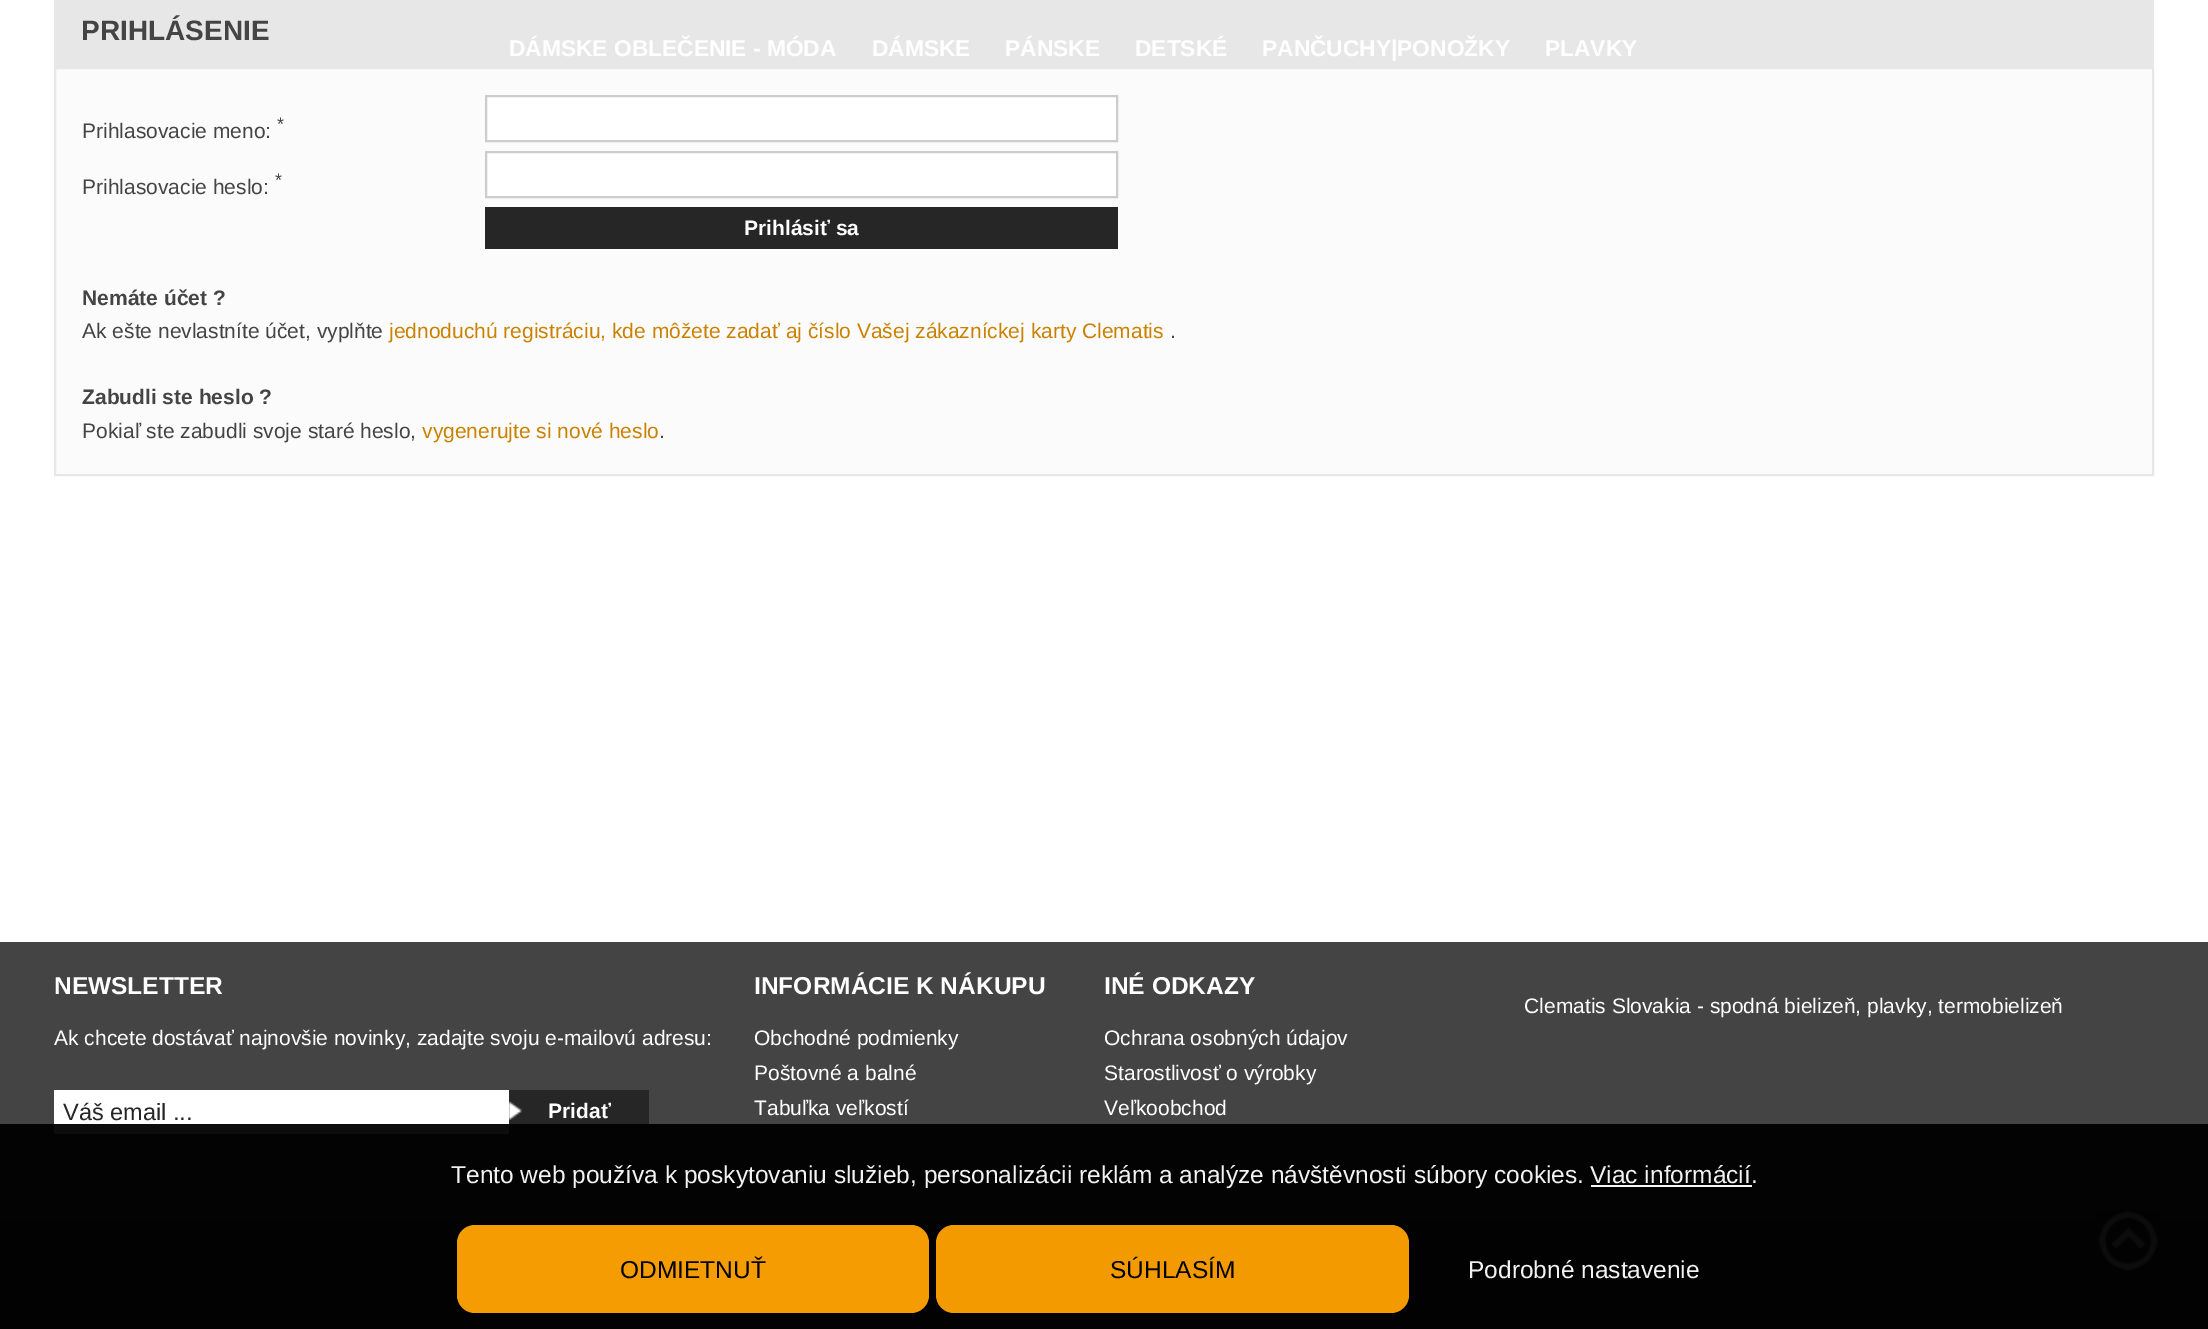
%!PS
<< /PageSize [2208 1329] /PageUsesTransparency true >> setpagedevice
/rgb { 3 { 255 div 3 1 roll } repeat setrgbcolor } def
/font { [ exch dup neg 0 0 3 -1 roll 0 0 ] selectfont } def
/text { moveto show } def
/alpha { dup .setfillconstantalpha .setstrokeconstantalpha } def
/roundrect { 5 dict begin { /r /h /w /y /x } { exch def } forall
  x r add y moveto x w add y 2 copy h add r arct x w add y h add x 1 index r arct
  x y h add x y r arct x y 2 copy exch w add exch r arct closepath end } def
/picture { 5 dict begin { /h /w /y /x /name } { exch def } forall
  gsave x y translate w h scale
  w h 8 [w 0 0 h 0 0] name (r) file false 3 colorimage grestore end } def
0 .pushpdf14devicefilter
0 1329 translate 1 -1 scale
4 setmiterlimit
255 255 255 rgb
0 0 2208 1329 rectfill
231 231 231 rgb
54 0 2100 67 rectfill
251 251 251 rgb
55 68 moveto 2098 0 rlineto 0 407 rlineto -2098 0 rlineto closepath gsave fill grestore
231 231 231 rgb
2 setlinewidth
stroke
255 255 255 rgb
486 96 moveto 631 0 rlineto 0 45 rlineto -631 0 rlineto closepath gsave fill grestore
204 204 204 rgb
stroke
255 255 255 rgb
486 152 moveto 631 0 rlineto 0 45 rlineto -631 0 rlineto closepath gsave fill grestore
204 204 204 rgb
stroke
38 38 38 rgb
485 207 633 42 rectfill
68 68 68 rgb
0 942 2208 182 rectfill
3 3 3 rgb
0 1124 2208 98 rectfill
255 255 255 rgb
54 1090 455 34 rectfill
13 13 13 rgb
54 1124 455 10 rectfill
38 38 38 rgb
509 1090 140 34 rectfill
(img_01.rgb) 509 1101 13 19 picture
246 246 246 rgb
1591 1185 161 2 rectfill
2 2 2 rgb
0 1222 2208 107 rectfill
244 156 2 rgb
457 1225 472 88 18 roundrect fill
0.95 alpha
255 162 0 rgb
936 1225 473 88 18 roundrect fill
1 alpha
(img_02.rgb) 2097 1210 62 61 picture
/LiberationSans-Bold 28 font
68 68 68 rgb
(PRIHLÁSENIE) 81 40 text
/LiberationSans-Regular 18 font
(*) 277 130 text
/LiberationSans-Regular 21 font
(Prihlasovacie meno:) 82 138 text
/LiberationSans-Regular 18 font
(*) 275 186 text
/LiberationSans-Regular 21 font
(Prihlasovacie heslo:) 82 194 text
/LiberationSans-Bold 21 font
255 255 255 rgb
(Prihlásiť sa) 744 235 text
68 68 68 rgb
(Nemáte účet ?) 82 305 text
/LiberationSans-Regular 21 font
(Ak ešte nevlastníte účet, vyplňte) 82 338 text
203 129 0 rgb
(jednoduchú registráciu, kde môžete zadať aj číslo Vašej zákazníckej karty Clematis) 389 338 text
68 68 68 rgb
(.) 1170 338 text
/LiberationSans-Bold 21 font
(Zabudli ste heslo ?) 82 404 text
/LiberationSans-Regular 21 font
(Pokiaľ ste zabudli svoje staré heslo,) 82 438 text
203 129 0 rgb
(vygenerujte si nové heslo) 422 438 text
68 68 68 rgb
(.) 659 438 text
/LiberationSans-Bold 22.75 font
255 255 255 rgb
(DÁMSKE OBLEČENIE - MÓDA) 509 56 text
(DÁMSKE) 872 56 text
(PÁNSKE) 1005 56 text
(DETSKÉ) 1135 56 text
(PANČUCHY|PONOŽKY) 1262 56 text
(PLAVKY) 1545 56 text
/LiberationSans-Bold 24.5 font
(NEWSLETTER) 54 994 text
/LiberationSans-Regular 21 font
(Ak chcete dostávať najnovšie novinky, zadajte svoju e-mailovú adresu:) 54 1045 text
/LiberationSans-Regular 23.5 font
38 38 38 rgb
(Váš email ...) 63 1120 text
/LiberationSans-Bold 21 font
255 255 255 rgb
(Pridať) 548 1118 text
/LiberationSans-Bold 24.5 font
(INFORMÁCIE K NÁKUPU) 754 994 text
/LiberationSans-Regular 21 font
(Obchodné podmienky) 754 1045 text
(Poštovné a balné) 754 1080 text
(Tabuľka veľkostí) 754 1115 text
/LiberationSans-Bold 24.5 font
(INÉ ODKAZY) 1104 994 text
/LiberationSans-Regular 21 font
(Ochrana osobných údajov) 1104 1045 text
(Starostlivosť o výrobky) 1104 1080 text
(Veľkoobchod) 1104 1115 text
(Clematis Slovakia - spodná bielizeň, plavky, termobielizeň) 1524 1013 text
/LiberationSans-Regular 24.5 font
242 242 242 rgb
(Tento web používa k poskytovaniu služieb, personalizácii reklám a analýze návštěvnosti súbory cookies.) 451 1183 text
(Viac informácií.) 1590 1183 text
2 2 2 rgb
(ODMIETNUŤ) 620 1278 text
(SÚHLASÍM) 1110 1278 text
242 242 242 rgb
(Podrobné nastavenie) 1468 1278 text
.poppdf14devicefilter showpage
